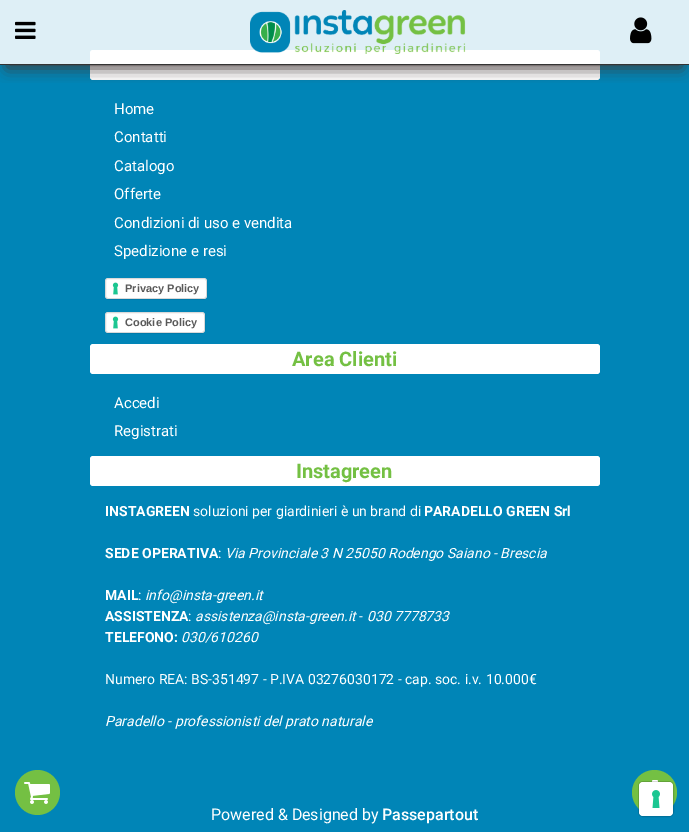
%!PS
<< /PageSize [689 832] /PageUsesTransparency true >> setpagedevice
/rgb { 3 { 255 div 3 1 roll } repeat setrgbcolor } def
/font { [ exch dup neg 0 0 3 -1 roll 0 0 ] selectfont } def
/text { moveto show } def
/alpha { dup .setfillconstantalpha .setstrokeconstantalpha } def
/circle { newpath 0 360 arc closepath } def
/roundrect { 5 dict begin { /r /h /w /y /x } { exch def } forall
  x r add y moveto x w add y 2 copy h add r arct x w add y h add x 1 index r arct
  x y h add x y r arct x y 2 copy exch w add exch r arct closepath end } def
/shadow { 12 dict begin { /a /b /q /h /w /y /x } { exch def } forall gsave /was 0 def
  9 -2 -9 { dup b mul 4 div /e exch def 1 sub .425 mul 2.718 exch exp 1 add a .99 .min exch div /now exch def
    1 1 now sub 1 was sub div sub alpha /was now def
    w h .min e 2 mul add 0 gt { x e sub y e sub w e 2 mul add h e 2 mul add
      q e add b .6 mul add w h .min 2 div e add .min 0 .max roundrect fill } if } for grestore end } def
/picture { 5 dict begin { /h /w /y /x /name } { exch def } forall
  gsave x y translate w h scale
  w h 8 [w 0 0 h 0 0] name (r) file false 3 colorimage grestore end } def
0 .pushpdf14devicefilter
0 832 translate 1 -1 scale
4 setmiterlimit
0 133 183 rgb
0 0 689 832 rectfill
255 255 255 rgb
90 50 510 30 3 roundrect fill
gsave
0 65 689 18 rectclip
63 54 54 rgb
7 17 675 51 0 7.5 1 shadow
grestore
0.87 alpha
0 0 689 64 rectfill
1 alpha
51 51 51 rgb
0 64 689 1 rectfill
(img_01.rgb) 15 21 21 18 picture
(img_02.rgb) 250 10 216 44 picture
(img_03.rgb) 630 17 22 27 picture
0 0 0 rgb
106 280 100 19 2 0.5 0.15 shadow
255 255 255 rgb
105 278 102 21 3 roundrect fill
(img_04.rgb) 112 282 7 13 picture
0.15 alpha
0 0 0 rgb
105.5 278.5 101 20 2.5 roundrect stroke
1 alpha
106 314 98 19 2 0.5 0.15 shadow
255 255 255 rgb
105 312 100 21 3 roundrect fill
(img_04.rgb) 112 316 7 13 picture
0.15 alpha
0 0 0 rgb
105.5 312.5 99 20 2.5 roundrect stroke
1 alpha
255 255 255 rgb
90 344 510 30 3 roundrect fill
90 456 510 30 3 roundrect fill
116 192 67 rgb
37.5 792.5 22.5 circle fill
(img_05.rgb) 24 782 26 22 picture
654.5 792.5 22.5 circle fill
(img_06.rgb) 652 780 6 2 picture
0.15 alpha
0 0 0 rgb
638.5 781.5 35 35 4.5 roundrect stroke
1 alpha
255 255 255 rgb
639 782 34 34 4 roundrect fill
(img_07.rgb) 652 790 8 18 picture
/Roboto-Regular 15 font
(Home) 114 114 text
(Contatti) 114 142 text
(Catalogo) 114 171 text
(Offerte) 114 199 text
(Condizioni di uso e vendita) 114 228 text
(Spedizione e resi) 114 256 text
/LiberationSans-Bold 11 font
89 89 89 rgb
(Privacy Policy) 125 292 text
(Cookie Policy) 125 326 text
/Roboto-Bold 20 font
116 192 67 rgb
(Area Clienti) 292 366 text
/Roboto-Regular 15 font
255 255 255 rgb
(Accedi) 114 408 text
(Registrati) 114 436 text
/Roboto-Bold 20 font
116 192 67 rgb
(Instagreen) 296 478 text
/Roboto-Bold 14 font
255 255 255 rgb
(INSTAGREEN) 105 516 text
/Roboto-Regular 14 font
(soluzioni per giardinieri è un brand di) 193 516 text
/Roboto-Bold 14 font
(PARADELLO GREEN Srl) 424 516 text
(SEDE OPERATIVA) 105 558 text
/Roboto-Regular 14 font
(:) 218 558 text
/Roboto-Italic 14 font
(Via Provinciale 3 N 25050 Rodengo Saiano - Brescia) 225 558 text
/Roboto-Bold 14 font
(MAIL) 105 600 text
/Roboto-Regular 14 font
(:) 138 600 text
/Roboto-Italic 14 font
(info@insta-green.it) 145 600 text
/Roboto-Bold 14 font
(ASSISTENZA) 105 621 text
/Roboto-Regular 14 font
(:) 188 621 text
/Roboto-Italic 14 font
(assistenza@insta-green.it) 195 621 text
/Roboto-Regular 14 font
(-) 359 621 text
/Roboto-Italic 14 font
(030 7778733) 367 621 text
/Roboto-Bold 14 font
(TELEFONO:) 105 642 text
/Roboto-Italic 14 font
(030/610260) 181 642 text
/Roboto-Regular 14 font
(Numero REA: BS-351497 - P.IVA 03276030172 - cap. soc. i.v. 10.000€) 105 684 text
/Roboto-Italic 14 font
(Paradello - professionisti del prato naturale) 105 726 text
/Roboto-Regular 16 font
(Powered & Designed by) 211 820 text
/Roboto-Medium 16 font
(Passepartout) 382 820 text
.poppdf14devicefilter showpage
